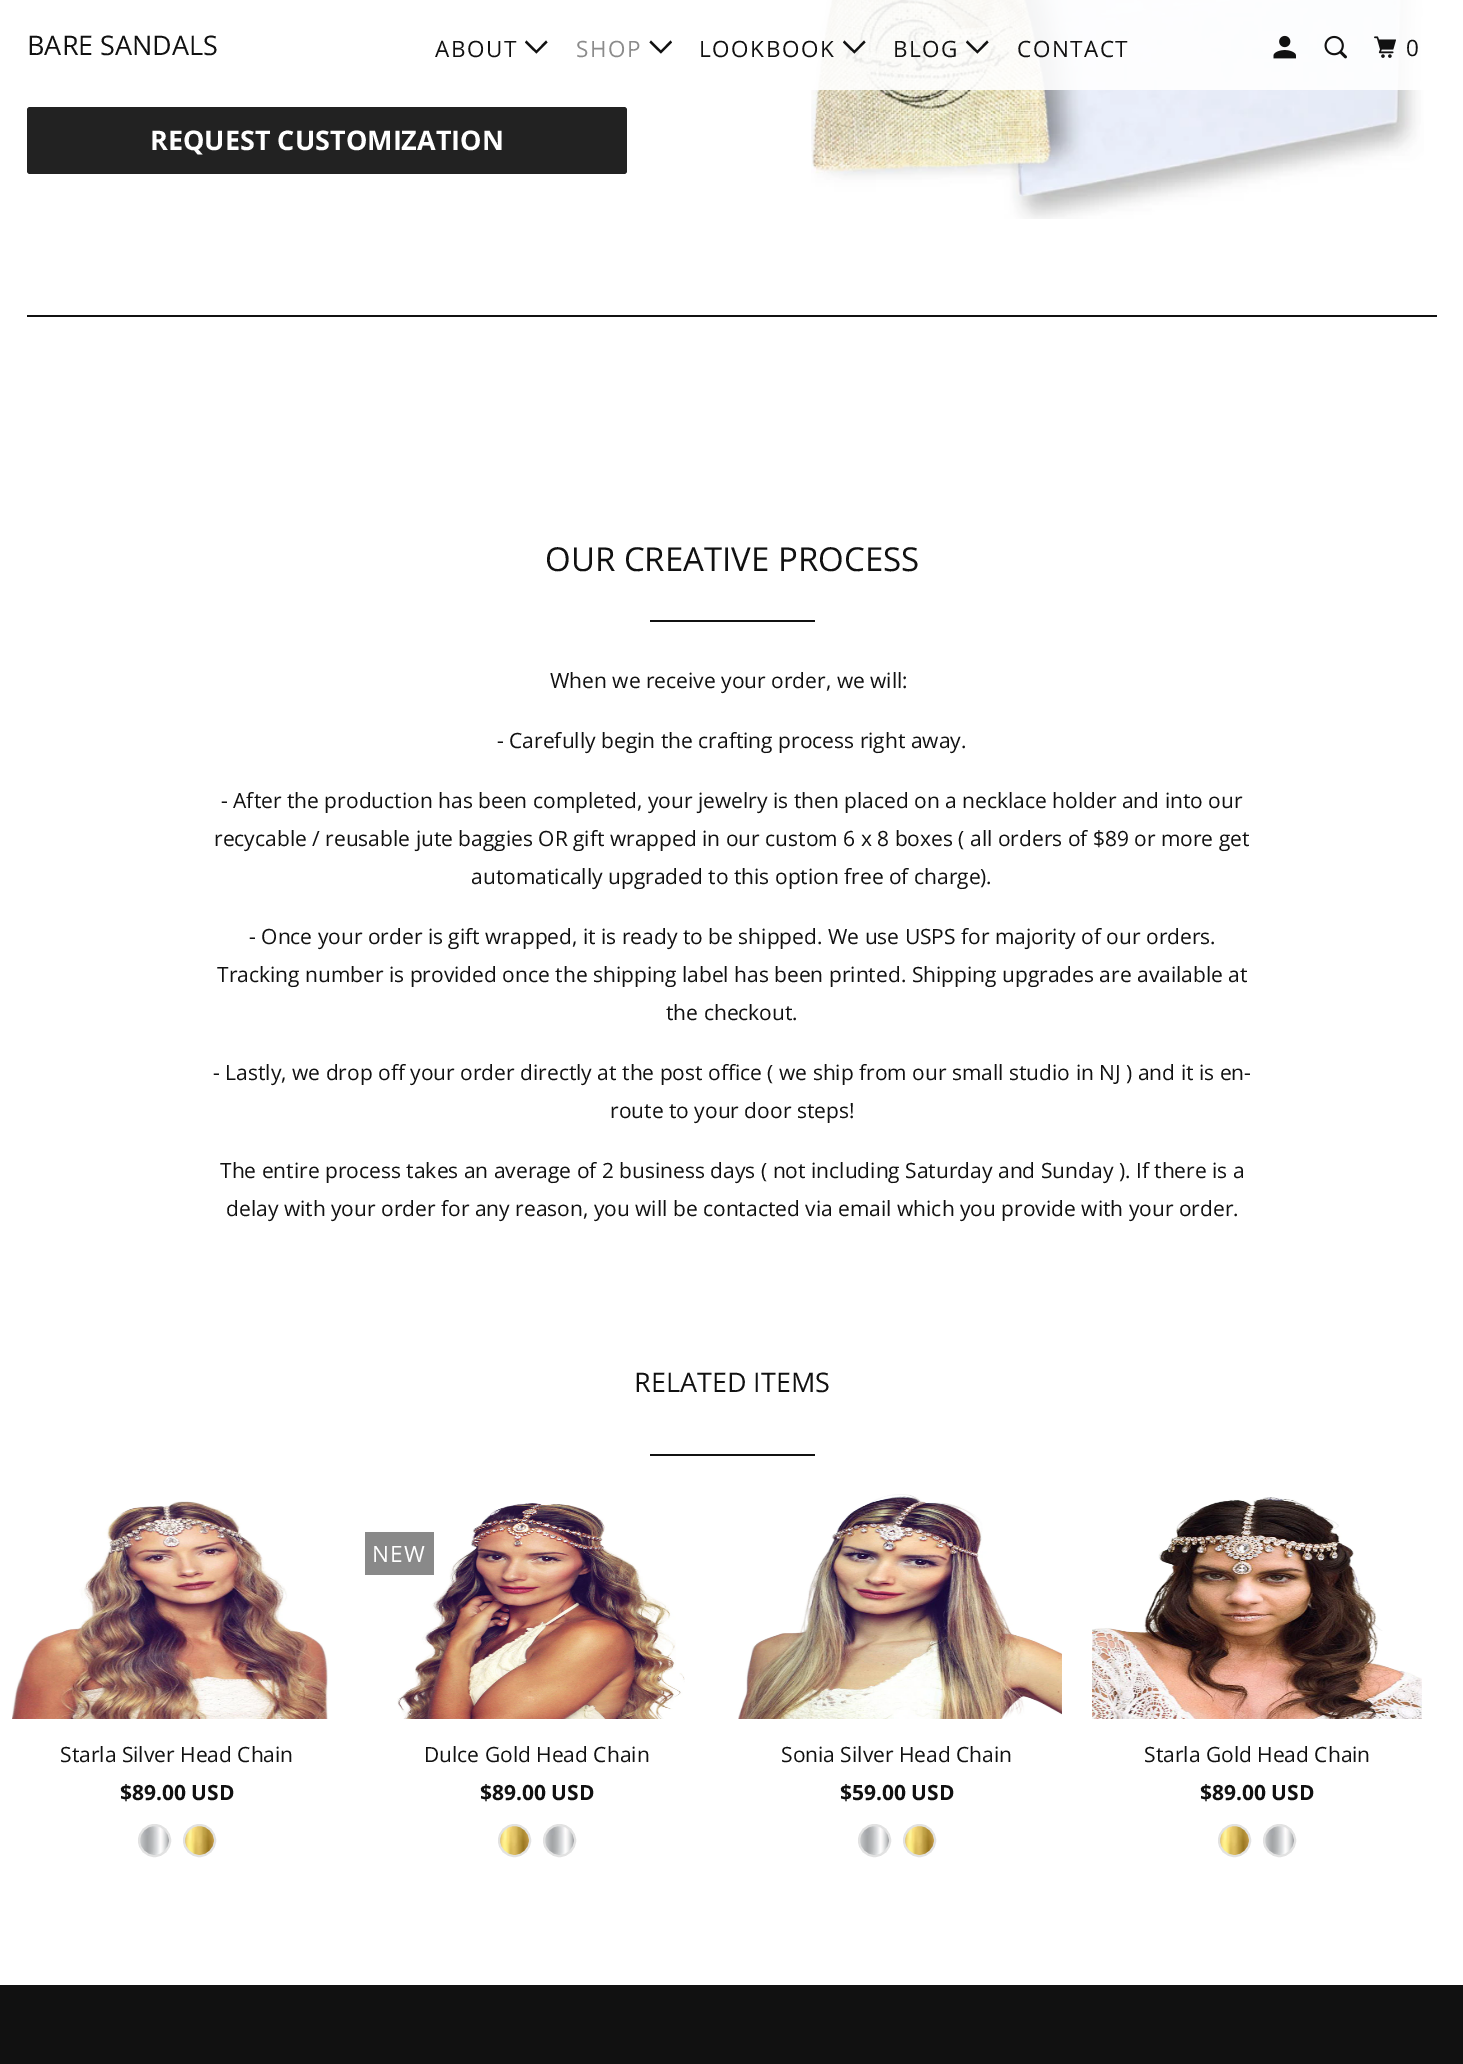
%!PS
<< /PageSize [1463 2064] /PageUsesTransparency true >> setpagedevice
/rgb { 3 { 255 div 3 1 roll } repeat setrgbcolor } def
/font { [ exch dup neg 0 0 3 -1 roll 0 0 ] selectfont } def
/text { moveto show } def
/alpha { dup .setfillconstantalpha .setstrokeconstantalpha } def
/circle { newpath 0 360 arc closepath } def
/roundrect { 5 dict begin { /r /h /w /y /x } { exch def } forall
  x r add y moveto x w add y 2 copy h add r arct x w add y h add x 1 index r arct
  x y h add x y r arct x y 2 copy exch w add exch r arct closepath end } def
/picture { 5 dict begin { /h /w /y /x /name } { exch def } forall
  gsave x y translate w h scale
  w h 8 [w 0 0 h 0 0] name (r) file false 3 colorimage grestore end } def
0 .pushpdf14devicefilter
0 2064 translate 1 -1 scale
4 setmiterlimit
255 255 255 rgb
0 0 1463 2064 rectfill
(img_04.rgb) 811 0 613 219 picture
0.9 alpha
811 0 613 90 rectfill
1 alpha
17 17 17 rgb
530.5 48 moveto -5.5 -5.5 rlineto 1.5 -2 rlineto 10 10 rlineto 9.5 -10 rlineto 1.5 2 rlineto -11 11 rlineto closepath fill
655 48 moveto -5.5 -5.5 rlineto 1.5 -2 rlineto 10 10 rlineto 9.5 -10 rlineto 1.5 2 rlineto -11 11 rlineto closepath fill
848.5 48 moveto -5.5 -5.5 rlineto 1.5 -2 rlineto 10 10 rlineto 9.5 -10 rlineto 1.5 2 rlineto -11 11 rlineto closepath fill
971.5 48 moveto -5.5 -5.5 rlineto 1.5 -2 rlineto 10 10 rlineto 9.5 -10 rlineto 1.5 2 rlineto -11 11 rlineto closepath fill
(img_01.rgb) 1273 35 23 24 picture
(img_02.rgb) 1324 35 23 24 picture
(img_03.rgb) 1374 36 22 22 picture
34 34 34 rgb
27 107 600 67 3 roundrect fill
17 17 17 rgb
27 315 1410 2 rectfill
650 620 165 2 rectfill
650 1454 165 2 rectfill
(img_05.rgb) 12 1501 317 218 picture
(img_06.rgb) 140 1826 29 29 picture
226 226 226 rgb
2 setlinewidth
154.5 1840.5 15.5 circle stroke
(img_07.rgb) 185 1826 29 29 picture
199.5 1840.5 15.5 circle stroke
(img_08.rgb) 397 1503 288 216 picture
137 137 137 rgb
365 1532 69 43 rectfill
(img_07.rgb) 500 1826 29 29 picture
226 226 226 rgb
514.5 1840.5 15.5 circle stroke
(img_06.rgb) 545 1826 29 29 picture
559.5 1840.5 15.5 circle stroke
(img_09.rgb) 738 1494 324 225 picture
(img_06.rgb) 860 1826 29 29 picture
874.5 1840.5 15.5 circle stroke
(img_07.rgb) 905 1826 29 29 picture
919.5 1840.5 15.5 circle stroke
(img_10.rgb) 1092 1497 330 222 picture
(img_07.rgb) 1220 1826 29 29 picture
1234.5 1840.5 15.5 circle stroke
(img_06.rgb) 1265 1826 29 29 picture
1279.5 1840.5 15.5 circle stroke
17 17 17 rgb
0 1985 1463 79 rectfill
/OpenSans-Regular 27 font
(BARE SANDALS) 27 55 text
/OpenSans-Regular 22.5 font
435 57 moveto 1.5 0 (ABOUT) ashow
139 139 139 rgb
576 57 moveto 1.5 0 (SHOP) ashow
17 17 17 rgb
699 57 moveto 1.5 0 (LOOKBOOK) ashow
893 57 moveto 1.5 0 (BLOG) ashow
1017 57 moveto 1.5 0 (CONTACT) ashow
1406 56 moveto 1.5 0 (0) ashow
/OpenSans-Bold 27 font
255 255 255 rgb
(REQUEST CUSTOMIZATION) 150 150 text
/OpenSans-Regular 33 font
17 17 17 rgb
(OUR CREATIVE PROCESS) 545 571 text
/OpenSans-Regular 21 font
(When we receive your order, we will:) 550 688 text
(- Carefully begin the crafting process right away.) 497 748 text
(- After the production has been completed, your jewelry is then placed on a necklace holder and into our) 221 808 text
(recycable / reusable jute baggies OR gift wrapped in our custom 6 x 8 boxes \( all orders of $89 or more get) 214 846 text
(automatically upgraded to this option free of charge\).) 471 884 text
(- Once your order is gift wrapped, it is ready to be shipped. We use USPS for majority of our orders.) 249 944 text
(Tracking number is provided once the shipping label has been printed. Shipping upgrades are available at) 217 982 text
(the checkout.) 666 1020 text
(- Lastly, we drop off your order directly at the post office \( we ship from our small studio in NJ \) and it is en-) 213 1080 text
(route to your door steps!) 610 1118 text
(The entire process takes an average of 2 business days \( not including Saturday and Sunday \). If there is a) 220 1178 text
(delay with your order for any reason, you will be contacted via email which you provide with your order.) 226 1216 text
/OpenSans-Regular 27 font
(RELATED ITEMS) 634 1392 text
/OpenSans-Regular 21 font
(Starla Silver Head Chain) 60 1762 text
/OpenSans-Bold 21 font
($89.00 USD) 120 1800 text
/OpenSans-Regular 22.5 font
255 255 255 rgb
372 1562 moveto 1.5 0 (NEW) ashow
/OpenSans-Regular 21 font
17 17 17 rgb
(Dulce Gold Head Chain) 424 1762 text
/OpenSans-Bold 21 font
($89.00 USD) 480 1800 text
/OpenSans-Regular 21 font
(Sonia Silver Head Chain) 781 1762 text
/OpenSans-Bold 21 font
($59.00 USD) 840 1800 text
/OpenSans-Regular 21 font
(Starla Gold Head Chain) 1144 1762 text
/OpenSans-Bold 21 font
($89.00 USD) 1200 1800 text
.poppdf14devicefilter showpage
